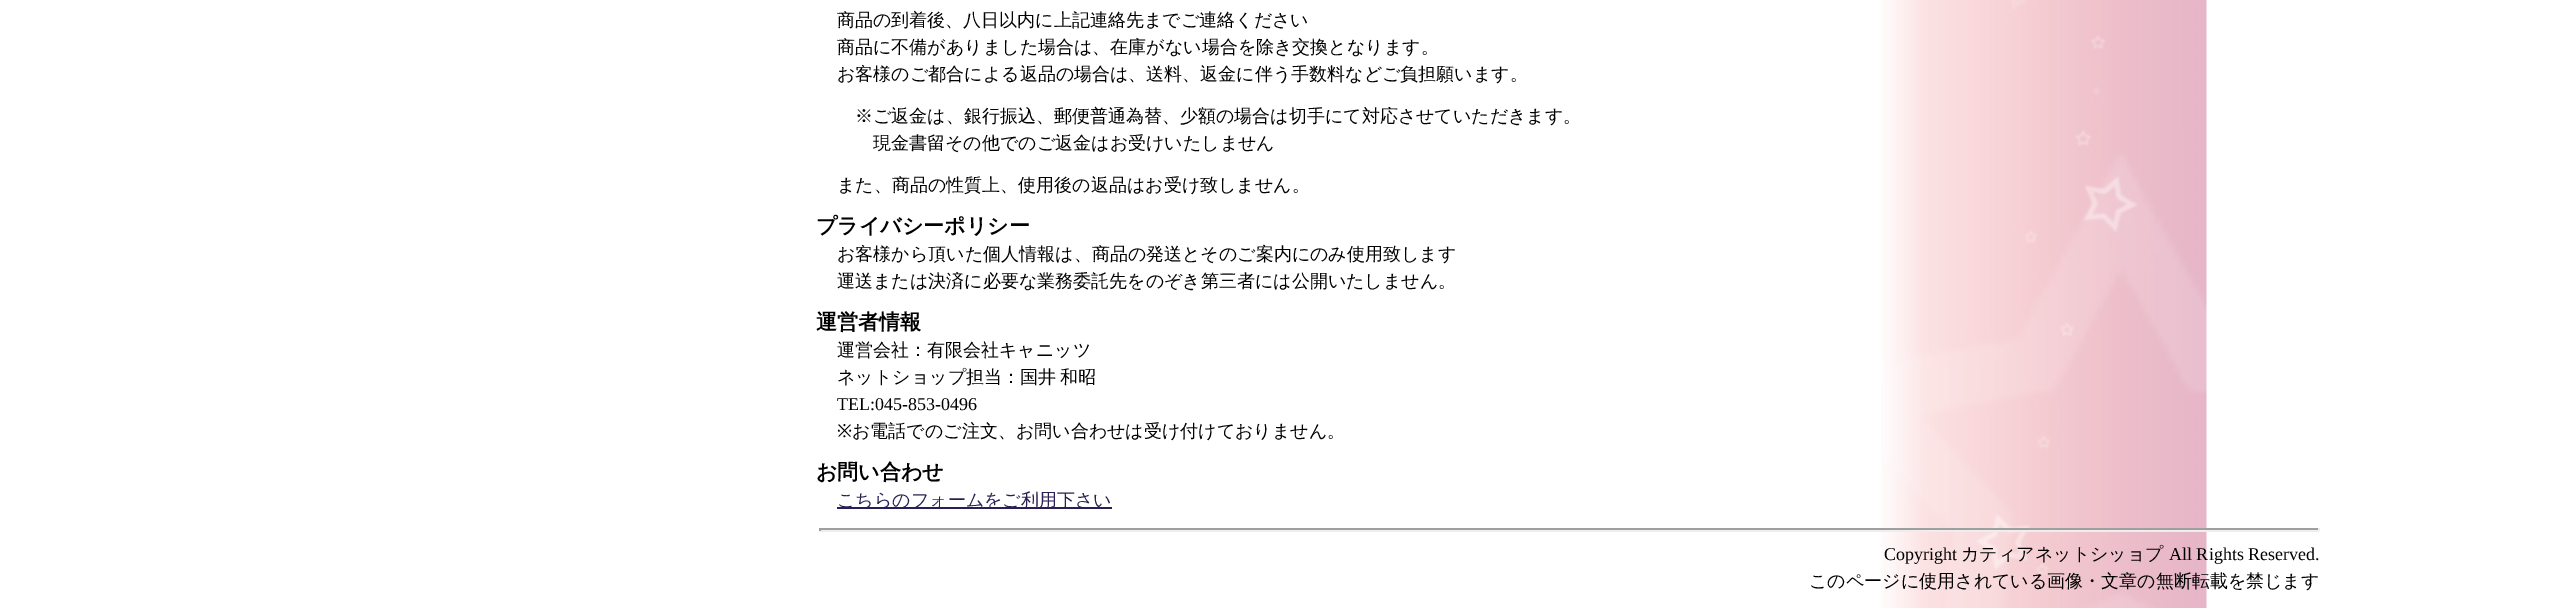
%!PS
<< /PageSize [2568 608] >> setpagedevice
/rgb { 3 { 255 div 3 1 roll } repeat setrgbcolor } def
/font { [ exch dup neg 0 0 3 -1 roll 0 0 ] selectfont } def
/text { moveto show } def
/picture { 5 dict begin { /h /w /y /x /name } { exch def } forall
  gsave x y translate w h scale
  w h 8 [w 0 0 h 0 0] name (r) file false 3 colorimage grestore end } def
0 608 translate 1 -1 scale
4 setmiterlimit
255 255 255 rgb
0 0 2568 608 rectfill
(img_01.rgb) 1881 0 326 608 picture
42 31 85 rgb
837 507 275 2 rectfill
159 159 159 rgb
819 528 1500 2 rectfill
238 238 238 rgb
2318 528 2 3 rectfill
819 530 1500 2 rectfill
159 159 159 rgb
819 528 2 3 rectfill
/WenQuanYiZenHei-Medium 18 font
0 0 0 rgb
(商品の到着後、八日以内に上記連絡先までご連絡ください) 837 26 text
(商品に不備がありました場合は、在庫がない場合を除き交換となります。) 837 53 text
(お客様のご都合による返品の場合は、送料、返金に伴う手数料などご負担願います。) 837 80 text
(※ご返金は、銀行振込、郵便普通為替、少額の場合は切手にて対応させていただきます。) 855 122 text
(現金書留その他でのご返金はお受けいたしません) 873 149 text
(また、商品の性質上、使用後の返品はお受け致しません。) 837 191 text
/WenQuanYiZenHei-Bold 21 font
(プライバシーポリシー) 816 233 text
/WenQuanYiZenHei-Medium 18 font
(お客様から頂いた個人情報は、商品の発送とそのご案内にのみ使用致します) 837 260 text
(運送または決済に必要な業務委託先をのぞき第三者には公開いたしません。) 837 287 text
/WenQuanYiZenHei-Bold 21 font
(運営者情報) 816 329 text
/WenQuanYiZenHei-Medium 18 font
(運営会社：有限会社キャニッツ) 837 356 text
837 383 moveto -1 0 32 (ネットショップ担当：国井 和昭) widthshow
/LiberationSerif-Regular 18 font
(TEL:045-853-0496) 837 410 text
/NotoSans-Regular 18 font
(※) 837 437 text
/WenQuanYiZenHei-Medium 18 font
(お電話でのご注文、お問い合わせは受け付けておりません。) 852 437 text
/WenQuanYiZenHei-Bold 21 font
(お問い合わせ) 816 479 text
/WenQuanYiZenHei-Medium 18 font
42 31 85 rgb
(こちらのフォームをご利用下さい) 837 506 text
/LiberationSerif-Regular 18 font
0 0 0 rgb
(Copyright) 1884 560 text
/WenQuanYiZenHei-Medium 18 font
(カティアネットシッョプ) 1961 560 text
/LiberationSerif-Regular 18 font
(All Rights Reserved.) 2169 560 text
/WenQuanYiZenHei-Medium 18 font
(このページに使用されている画像・文章の無断転載を禁じます) 1809 587 text
showpage
